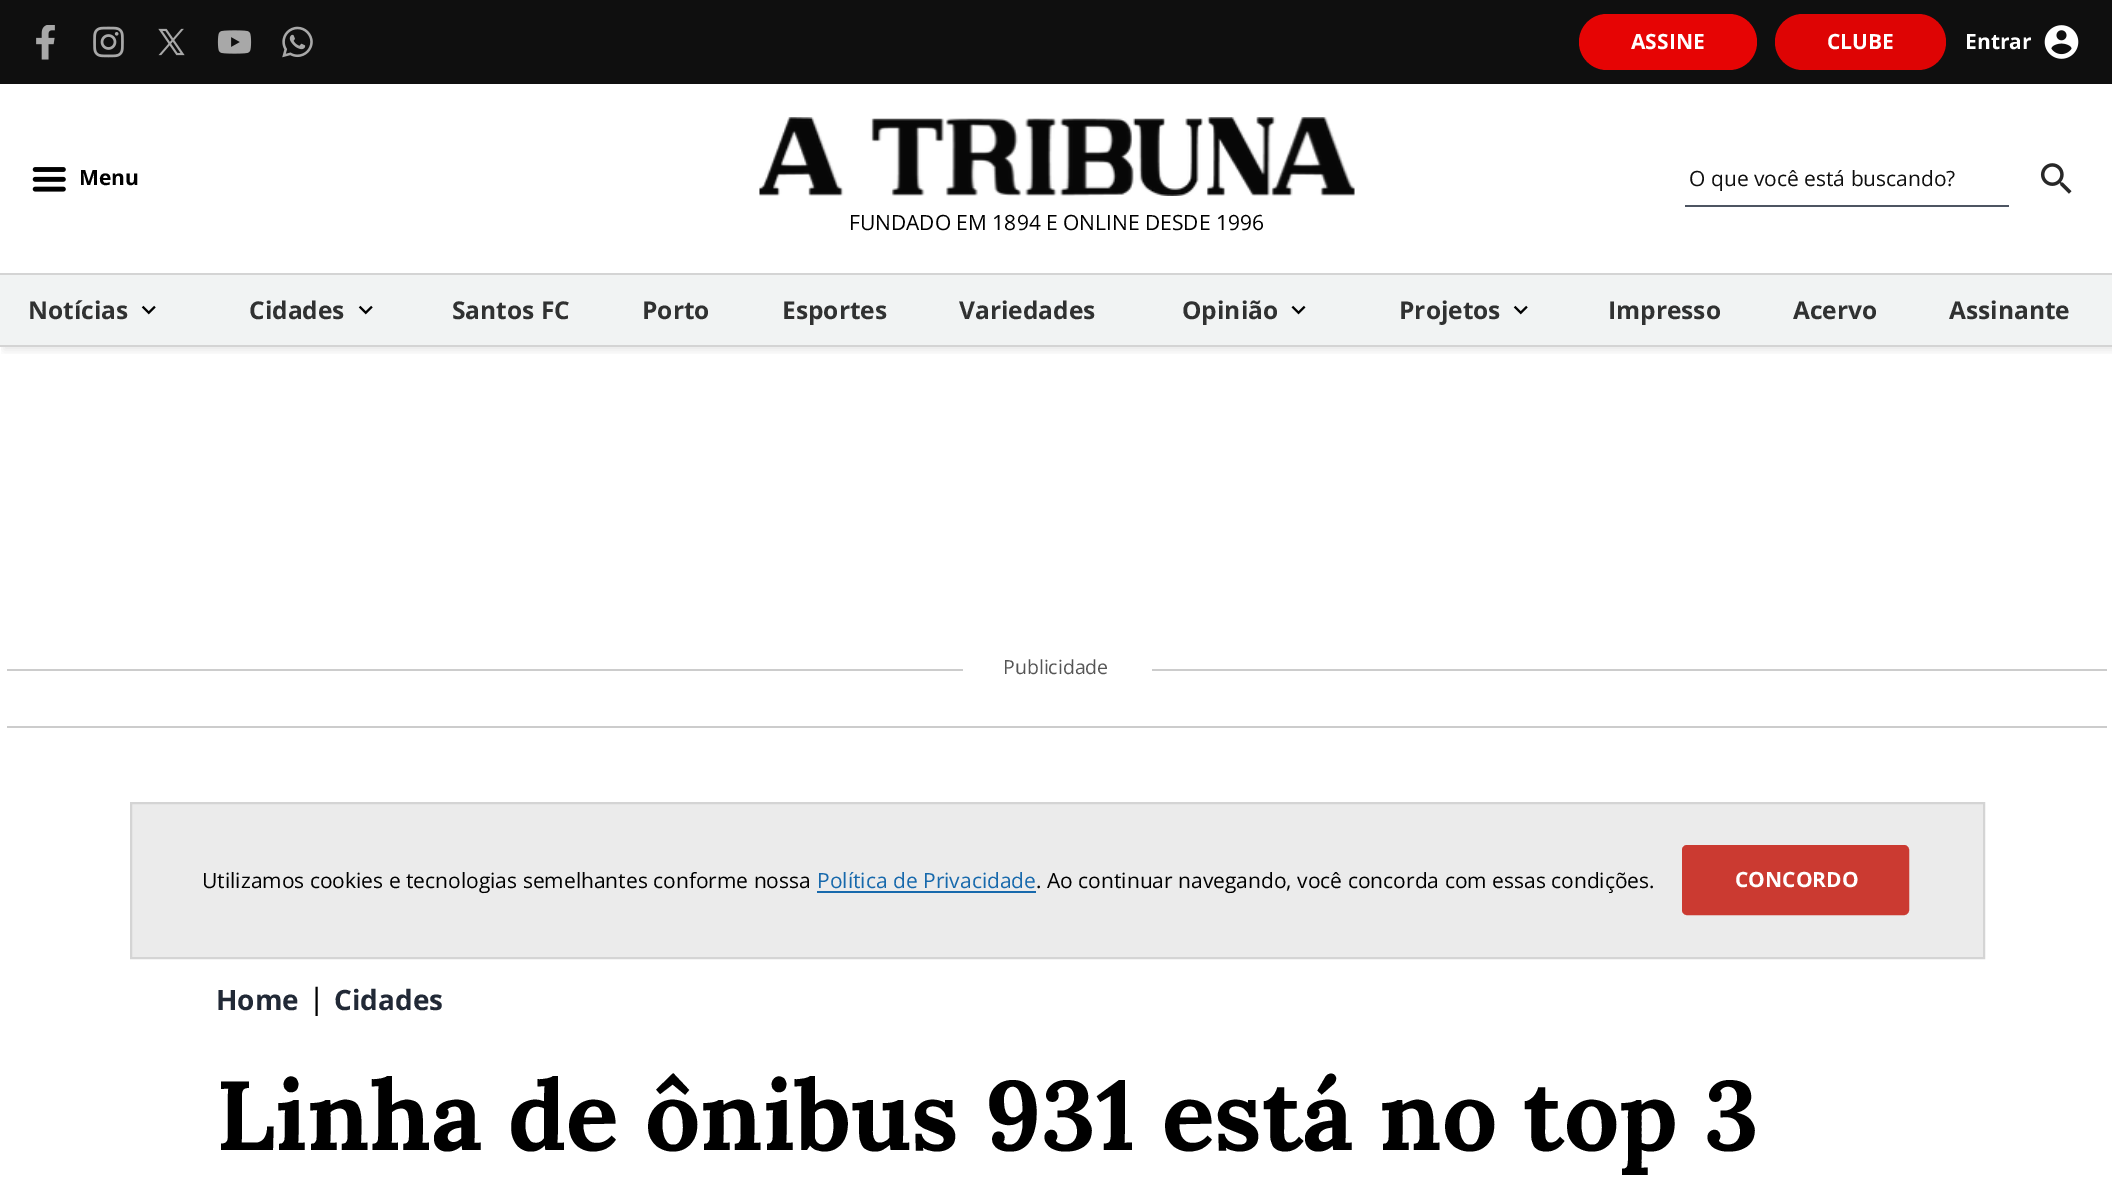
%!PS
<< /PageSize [2112 1203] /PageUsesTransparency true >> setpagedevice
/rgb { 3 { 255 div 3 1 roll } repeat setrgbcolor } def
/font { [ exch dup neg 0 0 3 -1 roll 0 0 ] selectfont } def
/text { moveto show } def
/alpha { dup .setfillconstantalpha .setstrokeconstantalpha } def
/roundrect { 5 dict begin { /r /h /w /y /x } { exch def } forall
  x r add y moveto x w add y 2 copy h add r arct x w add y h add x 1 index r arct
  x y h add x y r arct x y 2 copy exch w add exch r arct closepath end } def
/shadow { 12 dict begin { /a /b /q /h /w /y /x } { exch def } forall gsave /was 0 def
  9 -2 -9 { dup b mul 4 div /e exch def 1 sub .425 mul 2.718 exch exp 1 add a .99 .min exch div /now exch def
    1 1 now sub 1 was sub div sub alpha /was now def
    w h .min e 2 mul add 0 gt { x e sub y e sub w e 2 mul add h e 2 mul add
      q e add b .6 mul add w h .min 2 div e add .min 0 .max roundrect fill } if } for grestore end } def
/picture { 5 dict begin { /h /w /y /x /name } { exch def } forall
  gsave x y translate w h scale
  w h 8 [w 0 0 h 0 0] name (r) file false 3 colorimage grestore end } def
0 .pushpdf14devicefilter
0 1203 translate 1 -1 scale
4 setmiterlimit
255 255 255 rgb
0 0 2112 1203 rectfill
gsave
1 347 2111 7 rectclip
0 0 0 rgb
4 4 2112 346 0 4.5 0.1 shadow
grestore
15 15 15 rgb
0 0 2112 84 rectfill
(img_01.rgb) 36 25 19 35 picture
(img_02.rgb) 93 26 31 32 picture
(img_03.rgb) 158 28 27 28 picture
(img_04.rgb) 217 30 35 24 picture
(img_05.rgb) 282 26 31 32 picture
230 4 4 rgb
1579 14 178 56 28 roundrect fill
222 4 4 rgb
1775 14 171 56 28 roundrect fill
(img_06.rgb) 2044 25 35 34 picture
(img_07.rgb) 32 167 34 25 picture
77 85 98 rgb
1685 205 324 2 rectfill
(img_08.rgb) 2040 163 32 31 picture
(img_09.rgb) 759 117 596 79 picture
241 243 243 rgb
0 275 2112 70 rectfill
212 212 212 rgb
0 273 2112 2 rectfill
0 345 2112 2 rectfill
(img_10.rgb) 141 305 15 10 picture
(img_10.rgb) 358 305 15 10 picture
(img_11.rgb) 1291 305 15 10 picture
(img_10.rgb) 1513 305 15 10 picture
204 204 204 rgb
7 669 2100 2 rectfill
7 726 2100 2 rectfill
255 255 255 rgb
963 669 189 2 rectfill
235 235 235 rgb
131 803 moveto 1853 0 rlineto 0 155 rlineto -1853 0 rlineto closepath gsave fill grestore
212 212 212 rgb
2 setlinewidth
stroke
23 105 172 rgb
817 891 219 2 rectfill
203 58 49 rgb
1683 846 225 68 4 roundrect gsave fill grestore
stroke
/OpenSans-Bold 21 font
255 255 255 rgb
(ASSINE) 1631 49 text
(CLUBE) 1827 49 text
(Entrar) 1965 49 text
0 0 0 rgb
(Menu) 79 185 text
/OpenSans-Regular 21 font
15 15 15 rgb
(O que você está buscando?) 1689 186 text
0 0 0 rgb
(FUNDADO EM 1894 E ONLINE DESDE 1996) 849 230 text
/OpenSans-Bold 24.5 font
48 49 49 rgb
(Notícias) 28 319 text
(Cidades) 249 319 text
(Santos FC) 452 319 text
(Porto) 642 319 text
(Esportes) 782 319 text
(Variedades) 959 319 text
(Opinião) 1182 319 text
(Projetos) 1399 319 text
(Impresso) 1608 319 text
(Acervo) 1793 319 text
(Assinante) 1949 319 text
/OpenSans-Regular 19.5 font
85 85 85 rgb
(Publicidade) 1003 674 text
/OpenSans-Bold 28 font
33 41 54 rgb
(Home) 216 1010 text
/LiberationSerif-Bold 32 font
0 0 0 rgb
(|) 313 1009 text
/OpenSans-Bold 28 font
33 41 54 rgb
(Cidades) 334 1010 text
/Lora-Bold 98 font
0 0 0 rgb
(Linha de ônibus 931 está no top 3) 216 1150 text
/OpenSans-Regular 21 font
(Utilizamos cookies e tecnologias semelhantes conforme nossa) 202 888 text
23 105 172 rgb
(Política de Privacidade) 817 888 text
0 0 0 rgb
(. Ao continuar navegando, você concorda com essas condições.) 1036 888 text
/OpenSans-Bold 21 font
255 255 255 rgb
(CONCORDO) 1735 887 text
.poppdf14devicefilter showpage
